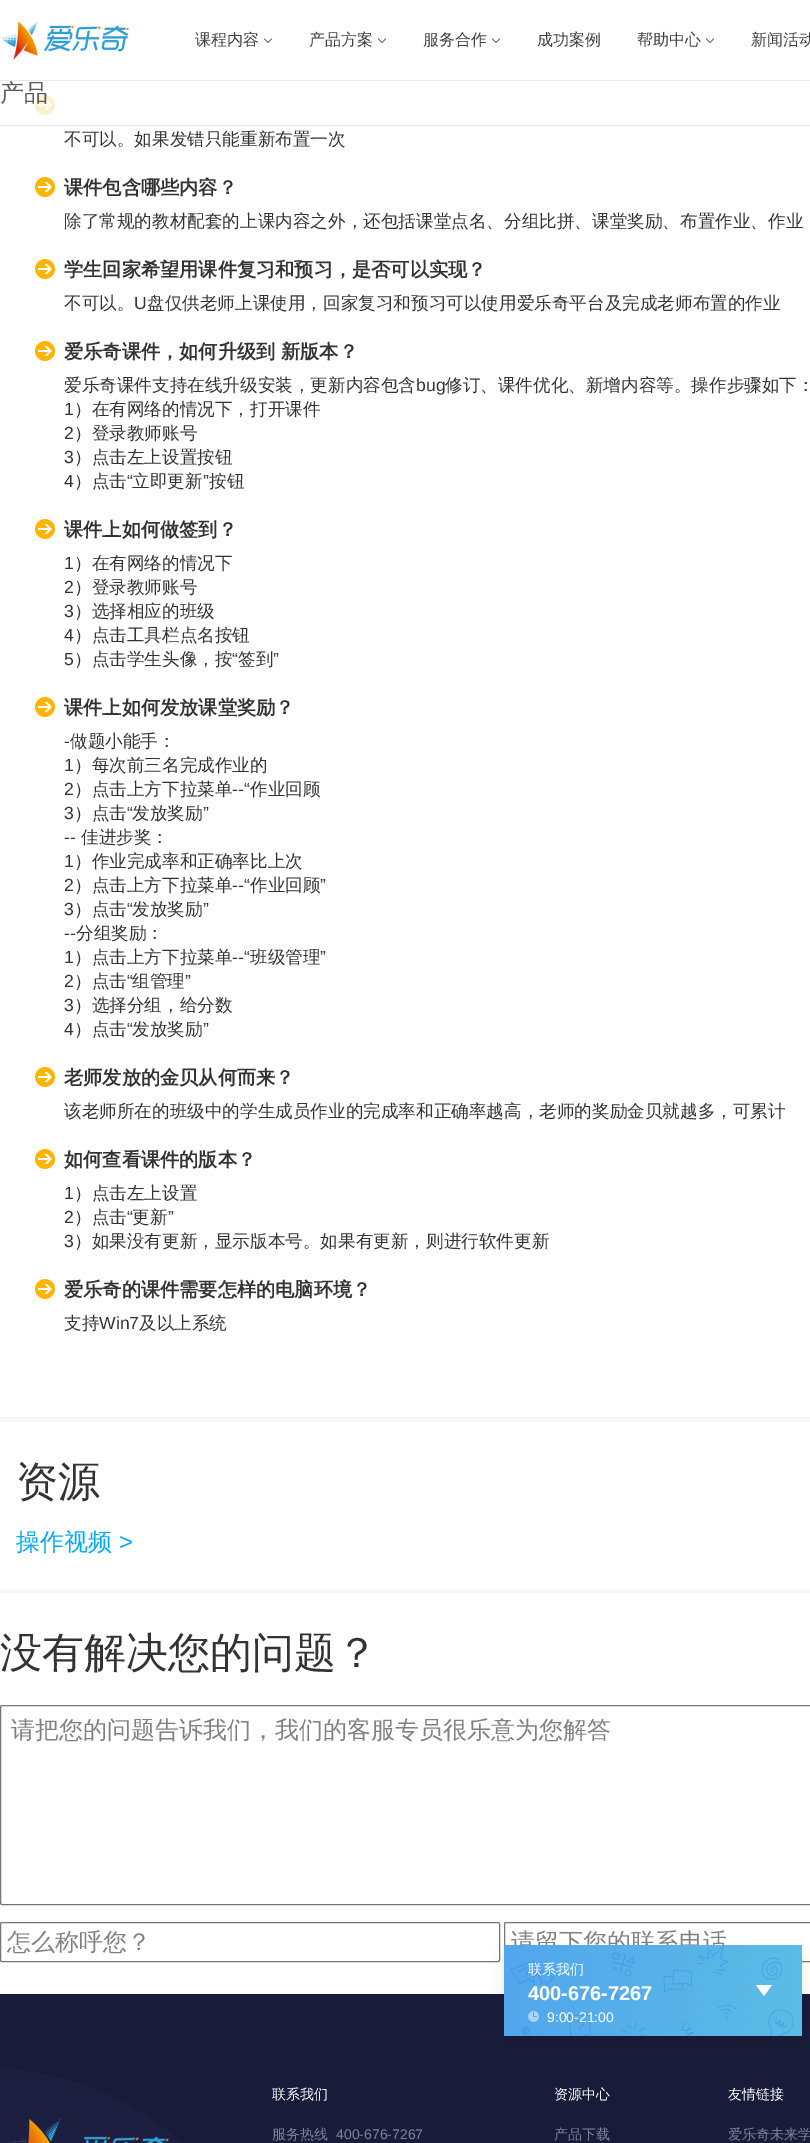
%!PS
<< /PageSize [810 2143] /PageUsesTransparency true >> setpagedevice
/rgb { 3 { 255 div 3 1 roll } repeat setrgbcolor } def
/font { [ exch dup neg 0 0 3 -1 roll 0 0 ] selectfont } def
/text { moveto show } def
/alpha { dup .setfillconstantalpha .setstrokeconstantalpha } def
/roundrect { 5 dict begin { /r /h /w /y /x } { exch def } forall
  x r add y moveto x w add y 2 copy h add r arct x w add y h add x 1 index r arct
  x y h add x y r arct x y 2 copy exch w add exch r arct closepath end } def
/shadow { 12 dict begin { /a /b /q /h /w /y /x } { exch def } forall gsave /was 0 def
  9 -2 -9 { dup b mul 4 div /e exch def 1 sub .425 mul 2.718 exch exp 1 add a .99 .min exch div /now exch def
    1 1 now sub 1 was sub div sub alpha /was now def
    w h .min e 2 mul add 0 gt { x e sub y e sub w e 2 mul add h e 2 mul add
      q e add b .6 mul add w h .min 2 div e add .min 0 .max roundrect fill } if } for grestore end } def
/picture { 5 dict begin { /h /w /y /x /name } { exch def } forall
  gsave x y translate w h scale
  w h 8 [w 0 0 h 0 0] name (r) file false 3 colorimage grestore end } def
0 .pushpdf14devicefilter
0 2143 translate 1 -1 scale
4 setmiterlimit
246 246 246 rgb
0 0 810 2143 rectfill
255 255 255 rgb
0 0 810 80 rectfill
(img_01.rgb) 0 21 129 39 picture
64 64 64 rgb
272 39 moveto -4 4 rlineto 0 -1 rlineto 3.5 -3.5 rlineto closepath 268 43 moveto -4 -4 rlineto 0.5 -0.5 rlineto 3.5 3.5 rlineto closepath fill
386 39 moveto -4 4 rlineto 0 -1 rlineto 3.5 -3.5 rlineto closepath 382 43 moveto -4 -4 rlineto 0.5 -0.5 rlineto 3.5 3.5 rlineto closepath fill
500 39 moveto -4 4 rlineto 0 -1 rlineto 3.5 -3.5 rlineto closepath 496 43 moveto -4 -4 rlineto 0.5 -0.5 rlineto 3.5 3.5 rlineto closepath fill
714 39 moveto -4 4 rlineto 0 -1 rlineto 3.5 -3.5 rlineto closepath 710 43 moveto -4 -4 rlineto 0.5 -0.5 rlineto 3.5 3.5 rlineto closepath fill
255 255 255 rgb
0 81 810 1336 rectfill
(img_02.rgb) 35 95 20 20 picture
0.8 alpha
35 95 20 20 rectfill
1 alpha
227 227 227 rgb
0 125 810 1 rectfill
(img_02.rgb) 35 177 20 20 picture
(img_02.rgb) 35 259 20 20 picture
(img_02.rgb) 35 341 20 20 picture
(img_02.rgb) 35 519 20 20 picture
(img_02.rgb) 35 697 20 20 picture
(img_02.rgb) 35 1067 20 20 picture
(img_02.rgb) 35 1149 20 20 picture
(img_02.rgb) 35 1279 20 20 picture
255 255 255 rgb
0 1422 810 168 rectfill
0 1593 810 401 rectfill
118 118 118 rgb
0.5 1705.5 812 199 1.5 roundrect stroke
0.5 1922.5 499 39 1.5 roundrect stroke
504.5 1922.5 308 39 1.5 roundrect stroke
24 27 58 rgb
0 1994 810 149 rectfill
0 0 0 rgb
504 1955 298 91 0 7 0.1 shadow
(img_05.rgb) 0 2068 182 75 picture
(img_06.rgb) 10 2118 159 25 picture
/WenQuanYiZenHei-Medium 16 font
64 64 64 rgb
(课程内容) 195 45 text
(产品方案) 309 45 text
(服务合作) 423 45 text
(成功案例) 537 45 text
(帮助中心) 637 45 text
(新闻活动) 751 45 text
/WenQuanYiZenHei-Medium 24 font
92 91 91 rgb
(产品) 0 101 text
233 233 233 rgb
0 80 810 1 rectfill
/WenQuanYiZenHei-Medium 17.6 font
51 51 51 rgb
(不可以。如果发错只能重新布置一次) 64 145 text
/WenQuanYiZenHei-Bold 19.2 font
(课件包含哪些内容？) 64 194 text
/WenQuanYiZenHei-Medium 17.6 font
(除了常规的教材配套的上课内容之外，还包括课堂点名、分组比拼、课堂奖励、布置作业、作业) 64 227 text
/WenQuanYiZenHei-Bold 19.2 font
(学生回家希望用课件复习和预习，是否可以实现？) 64 276 text
/WenQuanYiZenHei-Medium 17.6 font
(不可以。) 64 309 text
/LiberationSans-Regular 17.6 font
(U) 134 309 text
/WenQuanYiZenHei-Medium 17.6 font
(盘仅供老师上课使用，回家复习和预习可以使用爱乐奇平台及完成老师布置的作业) 147 309 text
/WenQuanYiZenHei-Bold 19.2 font
(爱乐奇课件，如何升级到 新版本？) 64 358 text
/WenQuanYiZenHei-Medium 17.6 font
(爱乐奇课件支持在线升级安装，更新内容包含) 64 391 text
/LiberationSans-Regular 17.6 font
(bug) 416 391 text
/WenQuanYiZenHei-Medium 17.6 font
(修订、课件优化、新增内容等。操作步骤如下：) 445 391 text
/LiberationSans-Regular 17.6 font
(1) 64 415 text
/WenQuanYiZenHei-Medium 17.6 font
(）在有网络的情况下，打开课件) 74 415 text
/LiberationSans-Regular 17.6 font
(2) 64 439 text
/WenQuanYiZenHei-Medium 17.6 font
(）登录教师账号) 74 439 text
/LiberationSans-Regular 17.6 font
(3) 64 463 text
/WenQuanYiZenHei-Medium 17.6 font
(）点击左上设置按钮) 74 463 text
/LiberationSans-Regular 17.6 font
(4) 64 487 text
/WenQuanYiZenHei-Medium 17.6 font
(）点击) 74 487 text
/LiberationSans-Regular 17.6 font
(“) 127 487 text
/WenQuanYiZenHei-Medium 17.6 font
(立即更新) 132 487 text
/LiberationSans-Regular 17.6 font
(”) 203 487 text
/WenQuanYiZenHei-Medium 17.6 font
(按钮) 209 487 text
/WenQuanYiZenHei-Bold 19.2 font
(课件上如何做签到？) 64 536 text
/LiberationSans-Regular 17.6 font
(1) 64 569 text
/WenQuanYiZenHei-Medium 17.6 font
(）在有网络的情况下) 74 569 text
/LiberationSans-Regular 17.6 font
(2) 64 593 text
/WenQuanYiZenHei-Medium 17.6 font
(）登录教师账号) 74 593 text
/LiberationSans-Regular 17.6 font
(3) 64 617 text
/WenQuanYiZenHei-Medium 17.6 font
(）选择相应的班级) 74 617 text
/LiberationSans-Regular 17.6 font
(4) 64 641 text
/WenQuanYiZenHei-Medium 17.6 font
(）点击工具栏点名按钮) 74 641 text
/LiberationSans-Regular 17.6 font
(5) 64 665 text
/WenQuanYiZenHei-Medium 17.6 font
(）点击学生头像，按) 74 665 text
/LiberationSans-Regular 17.6 font
(“) 232 665 text
/WenQuanYiZenHei-Medium 17.6 font
(签到) 238 665 text
/LiberationSans-Regular 17.6 font
(”) 273 665 text
/WenQuanYiZenHei-Bold 19.2 font
(课件上如何发放课堂奖励？) 64 714 text
/LiberationSans-Regular 17.6 font
(-) 64 747 text
/WenQuanYiZenHei-Medium 17.6 font
(做题小能手：) 70 747 text
/LiberationSans-Regular 17.6 font
(1) 64 771 text
/WenQuanYiZenHei-Medium 17.6 font
(）每次前三名完成作业的) 74 771 text
/LiberationSans-Regular 17.6 font
(2) 64 795 text
/WenQuanYiZenHei-Medium 17.6 font
(）点击上方下拉菜单) 74 795 text
/LiberationSans-Regular 17.6 font
(--“) 232 795 text
/WenQuanYiZenHei-Medium 17.6 font
(作业回顾) 250 795 text
/LiberationSans-Regular 17.6 font
(3) 64 819 text
/WenQuanYiZenHei-Medium 17.6 font
(）点击) 74 819 text
/LiberationSans-Regular 17.6 font
(“) 127 819 text
/WenQuanYiZenHei-Medium 17.6 font
(发放奖励) 132 819 text
/LiberationSans-Regular 17.6 font
(”) 203 819 text
(--) 64 843 text
/WenQuanYiZenHei-Medium 17.6 font
(佳进步奖：) 81 843 text
/LiberationSans-Regular 17.6 font
(1) 64 867 text
/WenQuanYiZenHei-Medium 17.6 font
(）作业完成率和正确率比上次) 74 867 text
/LiberationSans-Regular 17.6 font
(2) 64 891 text
/WenQuanYiZenHei-Medium 17.6 font
(）点击上方下拉菜单) 74 891 text
/LiberationSans-Regular 17.6 font
(--“) 232 891 text
/WenQuanYiZenHei-Medium 17.6 font
(作业回顾) 250 891 text
/LiberationSans-Regular 17.6 font
(”) 320 891 text
(3) 64 915 text
/WenQuanYiZenHei-Medium 17.6 font
(）点击) 74 915 text
/LiberationSans-Regular 17.6 font
(“) 127 915 text
/WenQuanYiZenHei-Medium 17.6 font
(发放奖励) 132 915 text
/LiberationSans-Regular 17.6 font
(”) 203 915 text
(--) 64 939 text
/WenQuanYiZenHei-Medium 17.6 font
(分组奖励：) 76 939 text
/LiberationSans-Regular 17.6 font
(1) 64 963 text
/WenQuanYiZenHei-Medium 17.6 font
(）点击上方下拉菜单) 74 963 text
/LiberationSans-Regular 17.6 font
(--“) 232 963 text
/WenQuanYiZenHei-Medium 17.6 font
(班级管理) 250 963 text
/LiberationSans-Regular 17.6 font
(”) 320 963 text
(2) 64 987 text
/WenQuanYiZenHei-Medium 17.6 font
(）点击) 74 987 text
/LiberationSans-Regular 17.6 font
(“) 127 987 text
/WenQuanYiZenHei-Medium 17.6 font
(组管理) 132 987 text
/LiberationSans-Regular 17.6 font
(”) 185 987 text
(3) 64 1011 text
/WenQuanYiZenHei-Medium 17.6 font
(）选择分组，给分数) 74 1011 text
/LiberationSans-Regular 17.6 font
(4) 64 1035 text
/WenQuanYiZenHei-Medium 17.6 font
(）点击) 74 1035 text
/LiberationSans-Regular 17.6 font
(“) 127 1035 text
/WenQuanYiZenHei-Medium 17.6 font
(发放奖励) 132 1035 text
/LiberationSans-Regular 17.6 font
(”) 203 1035 text
/WenQuanYiZenHei-Bold 19.2 font
(老师发放的金贝从何而来？) 64 1084 text
/WenQuanYiZenHei-Medium 17.6 font
(该老师所在的班级中的学生成员作业的完成率和正确率越高，老师的奖励金贝就越多，可累计) 64 1117 text
/WenQuanYiZenHei-Bold 19.2 font
(如何查看课件的版本？) 64 1166 text
/LiberationSans-Regular 17.6 font
(1) 64 1199 text
/WenQuanYiZenHei-Medium 17.6 font
(）点击左上设置) 74 1199 text
/LiberationSans-Regular 17.6 font
(2) 64 1223 text
/WenQuanYiZenHei-Medium 17.6 font
(）点击) 74 1223 text
/LiberationSans-Regular 17.6 font
(“) 127 1223 text
/WenQuanYiZenHei-Medium 17.6 font
(更新) 132 1223 text
/LiberationSans-Regular 17.6 font
(”) 168 1223 text
(3) 64 1247 text
/WenQuanYiZenHei-Medium 17.6 font
(）如果没有更新，显示版本号。如果有更新，则进行软件更新) 74 1247 text
/WenQuanYiZenHei-Bold 19.2 font
(爱乐奇的课件需要怎样的电脑环境？) 64 1296 text
/WenQuanYiZenHei-Medium 17.6 font
(支持) 64 1329 text
/LiberationSans-Regular 17.6 font
(Win7) 99 1329 text
/WenQuanYiZenHei-Medium 17.6 font
(及以上系统) 139 1329 text
/WenQuanYiZenHei-Medium 42 font
(资源) 16 1496 text
/WenQuanYiZenHei-Medium 24 font
0 168 255 rgb
(操作视频) 16 1550 text
/LiberationSans-Regular 24 font
(>) 119 1550 text
/WenQuanYiZenHei-Medium 42 font
51 51 51 rgb
(没有解决您的问题？) 0 1667 text
/WenQuanYiZenHei-Medium 24 font
128 128 128 rgb
(请把您的问题告诉我们，我们的客服专员很乐意为您解答) 11 1738 text
(怎么称呼您？) 7 1950 text
(请留下您的联系电话) 511 1950 text
(img_03.rgb) 504 1945 298 91 picture
/WenQuanYiZenHei-Medium 14 font
255 255 255 rgb
(联系我们) 528 1974 text
/LiberationSans-Bold 20 font
(400-676-7267) 528 2000 text
756 1985 moveto 16 0 rlineto -8 11 rlineto closepath fill
(img_04.rgb) 528 2011 11 11 picture
/LiberationSans-Regular 14 font
(9:00-21:00) 547 2022 text
/WenQuanYiZenHei-Medium 14 font
(联系我们) 272 2099 text
128 130 147 rgb
(服务热线) 272 2139 text
/LiberationSans-Regular 14 font
(400-676-7267) 336 2139 text
/WenQuanYiZenHei-Medium 14 font
255 255 255 rgb
(资源中心) 554 2099 text
128 130 147 rgb
(产品下载) 554 2139 text
255 255 255 rgb
(友情链接) 728 2099 text
128 130 147 rgb
(爱乐奇未来学) 728 2139 text
.poppdf14devicefilter showpage
